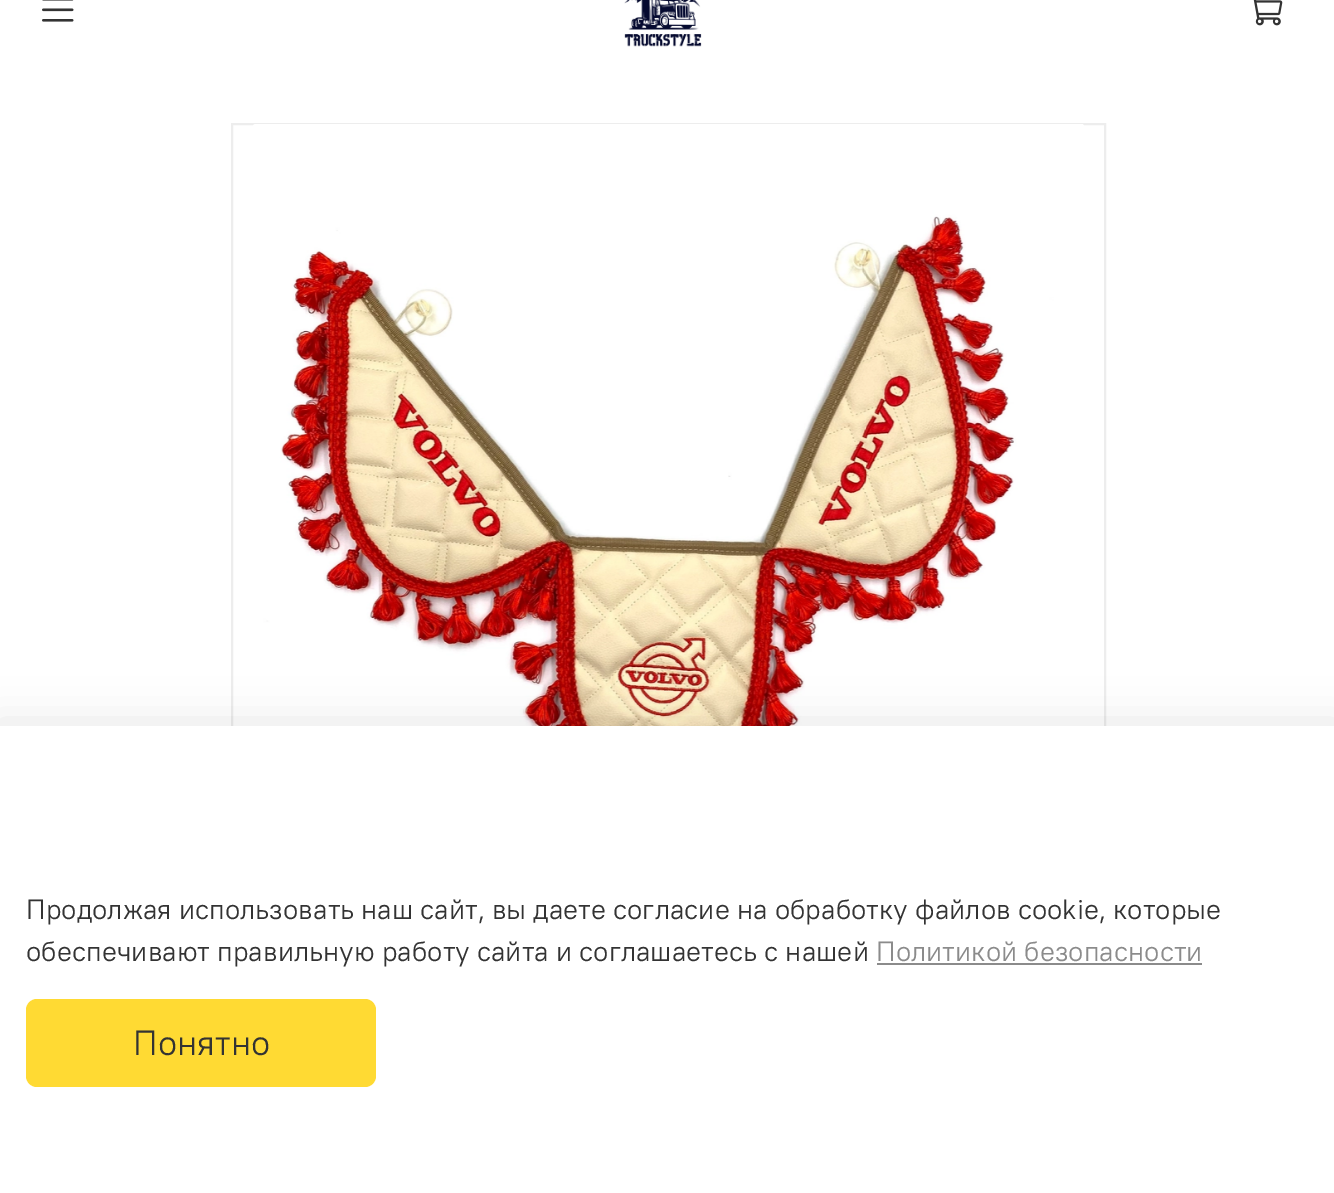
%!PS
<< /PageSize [1334 1193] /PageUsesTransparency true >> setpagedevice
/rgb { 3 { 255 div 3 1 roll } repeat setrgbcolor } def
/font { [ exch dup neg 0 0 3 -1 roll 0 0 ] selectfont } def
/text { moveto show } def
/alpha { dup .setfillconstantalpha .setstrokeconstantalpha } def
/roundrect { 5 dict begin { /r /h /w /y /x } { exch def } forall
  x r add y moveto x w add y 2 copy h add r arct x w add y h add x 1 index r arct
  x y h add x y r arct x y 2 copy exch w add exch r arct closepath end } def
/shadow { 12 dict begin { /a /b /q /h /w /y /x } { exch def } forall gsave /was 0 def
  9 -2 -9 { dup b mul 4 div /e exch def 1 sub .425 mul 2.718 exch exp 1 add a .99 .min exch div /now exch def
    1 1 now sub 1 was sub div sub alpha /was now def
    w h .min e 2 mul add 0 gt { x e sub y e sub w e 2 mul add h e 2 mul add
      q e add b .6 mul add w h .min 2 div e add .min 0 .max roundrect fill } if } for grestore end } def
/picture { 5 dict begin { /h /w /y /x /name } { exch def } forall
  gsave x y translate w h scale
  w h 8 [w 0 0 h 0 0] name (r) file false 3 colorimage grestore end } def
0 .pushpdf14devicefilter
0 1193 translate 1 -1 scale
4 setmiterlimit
255 255 255 rgb
0 0 1334 1193 rectfill
(img_01.rgb) 42 0 32 22 picture
(img_02.rgb) 624 0 78 47 picture
(img_03.rgb) 1253 0 30 26 picture
237 237 237 rgb
2 setlinewidth
232 124 873 876 rectstroke
(img_04.rgb) 253 124 831 602 picture
0 0 0 rgb
-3 721 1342 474 0 20 0.09 shadow
255 255 255 rgb
0 726 1334 467 rectfill
139 139 139 rgb
877 963 325 2 rectfill
255 218 51 rgb
26 999 350 88 11 roundrect fill
/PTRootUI-Regular 28 font
51 51 51 rgb
(Продолжая использовать наш сайт, вы даете согласие на обработку файлов cookie, которые) 26 919 text
(обеспечивают правильную работу сайта и соглашаетесь с нашей) 26 961 text
139 139 139 rgb
(Политикой безопасности) 876 961 text
/PTRootUI-Regular 35 font
51 51 51 rgb
(Понятно) 133 1055 text
.poppdf14devicefilter showpage
